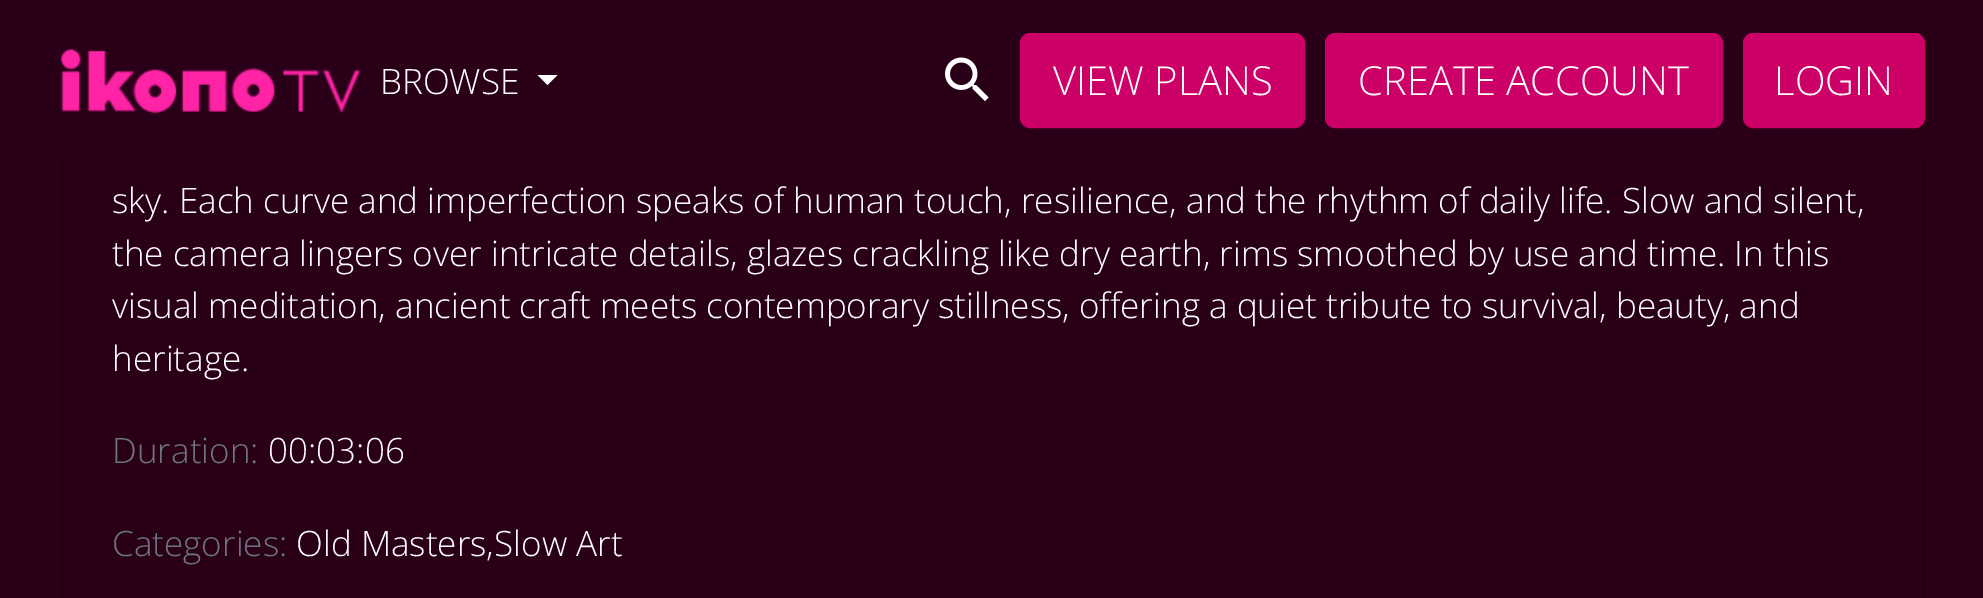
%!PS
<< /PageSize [1983 598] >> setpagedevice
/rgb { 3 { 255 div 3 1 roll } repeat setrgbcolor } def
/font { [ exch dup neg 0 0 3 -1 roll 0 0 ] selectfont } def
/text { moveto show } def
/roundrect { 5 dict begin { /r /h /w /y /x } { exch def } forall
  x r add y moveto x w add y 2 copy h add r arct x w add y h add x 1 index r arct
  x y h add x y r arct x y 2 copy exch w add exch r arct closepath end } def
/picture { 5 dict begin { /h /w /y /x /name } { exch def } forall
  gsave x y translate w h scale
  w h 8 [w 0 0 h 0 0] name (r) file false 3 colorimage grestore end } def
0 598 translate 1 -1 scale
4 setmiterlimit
41 0 24 rgb
0 0 1983 598 rectfill
36 0 21 rgb
3 setlinewidth
61.5 -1.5 1862 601 rectstroke
41 0 24 rgb
60 0 1865 160 rectfill
(img_01.rgb) 60 48 300 66 picture
255 255 255 rgb
537.5 75 moveto 20 0 rlineto -10 10 rlineto closepath fill
(img_02.rgb) 945 57 44 45 picture
204 0 102 rgb
1021.5 34.5 282 92 8.5 roundrect gsave fill grestore
stroke
1326.5 34.5 395 92 8.5 roundrect gsave fill grestore
stroke
1744.5 34.5 179 92 8.5 roundrect gsave fill grestore
stroke
/OpenSans-Light 35 font
255 255 255 rgb
(BROWSE) 380 94 text
/OpenSans-Light 40 font
(VIEW PLANS) 1053 95 text
(CREATE ACCOUNT) 1358 95 text
(LOGIN) 1774 95 text
/OpenSans-Light 35 font
(sky. Each curve and imperfection speaks of human touch, resilience, and the rhythm of daily life. Slow and silent,) 112 213 text
(the camera lingers over intricate details, glazes crackling like dry earth, rims smoothed by use and time. In this) 112 266 text
(visual meditation, ancient craft meets contemporary stillness, offering a quiet tribute to survival, beauty, and) 112 318 text
(heritage.) 112 371 text
108 117 125 rgb
(Duration:) 112 463 text
255 255 255 rgb
(00:03:06) 268 463 text
108 117 125 rgb
(Categories:) 112 556 text
255 255 255 rgb
(Old Masters,Slow Art) 296 556 text
showpage
